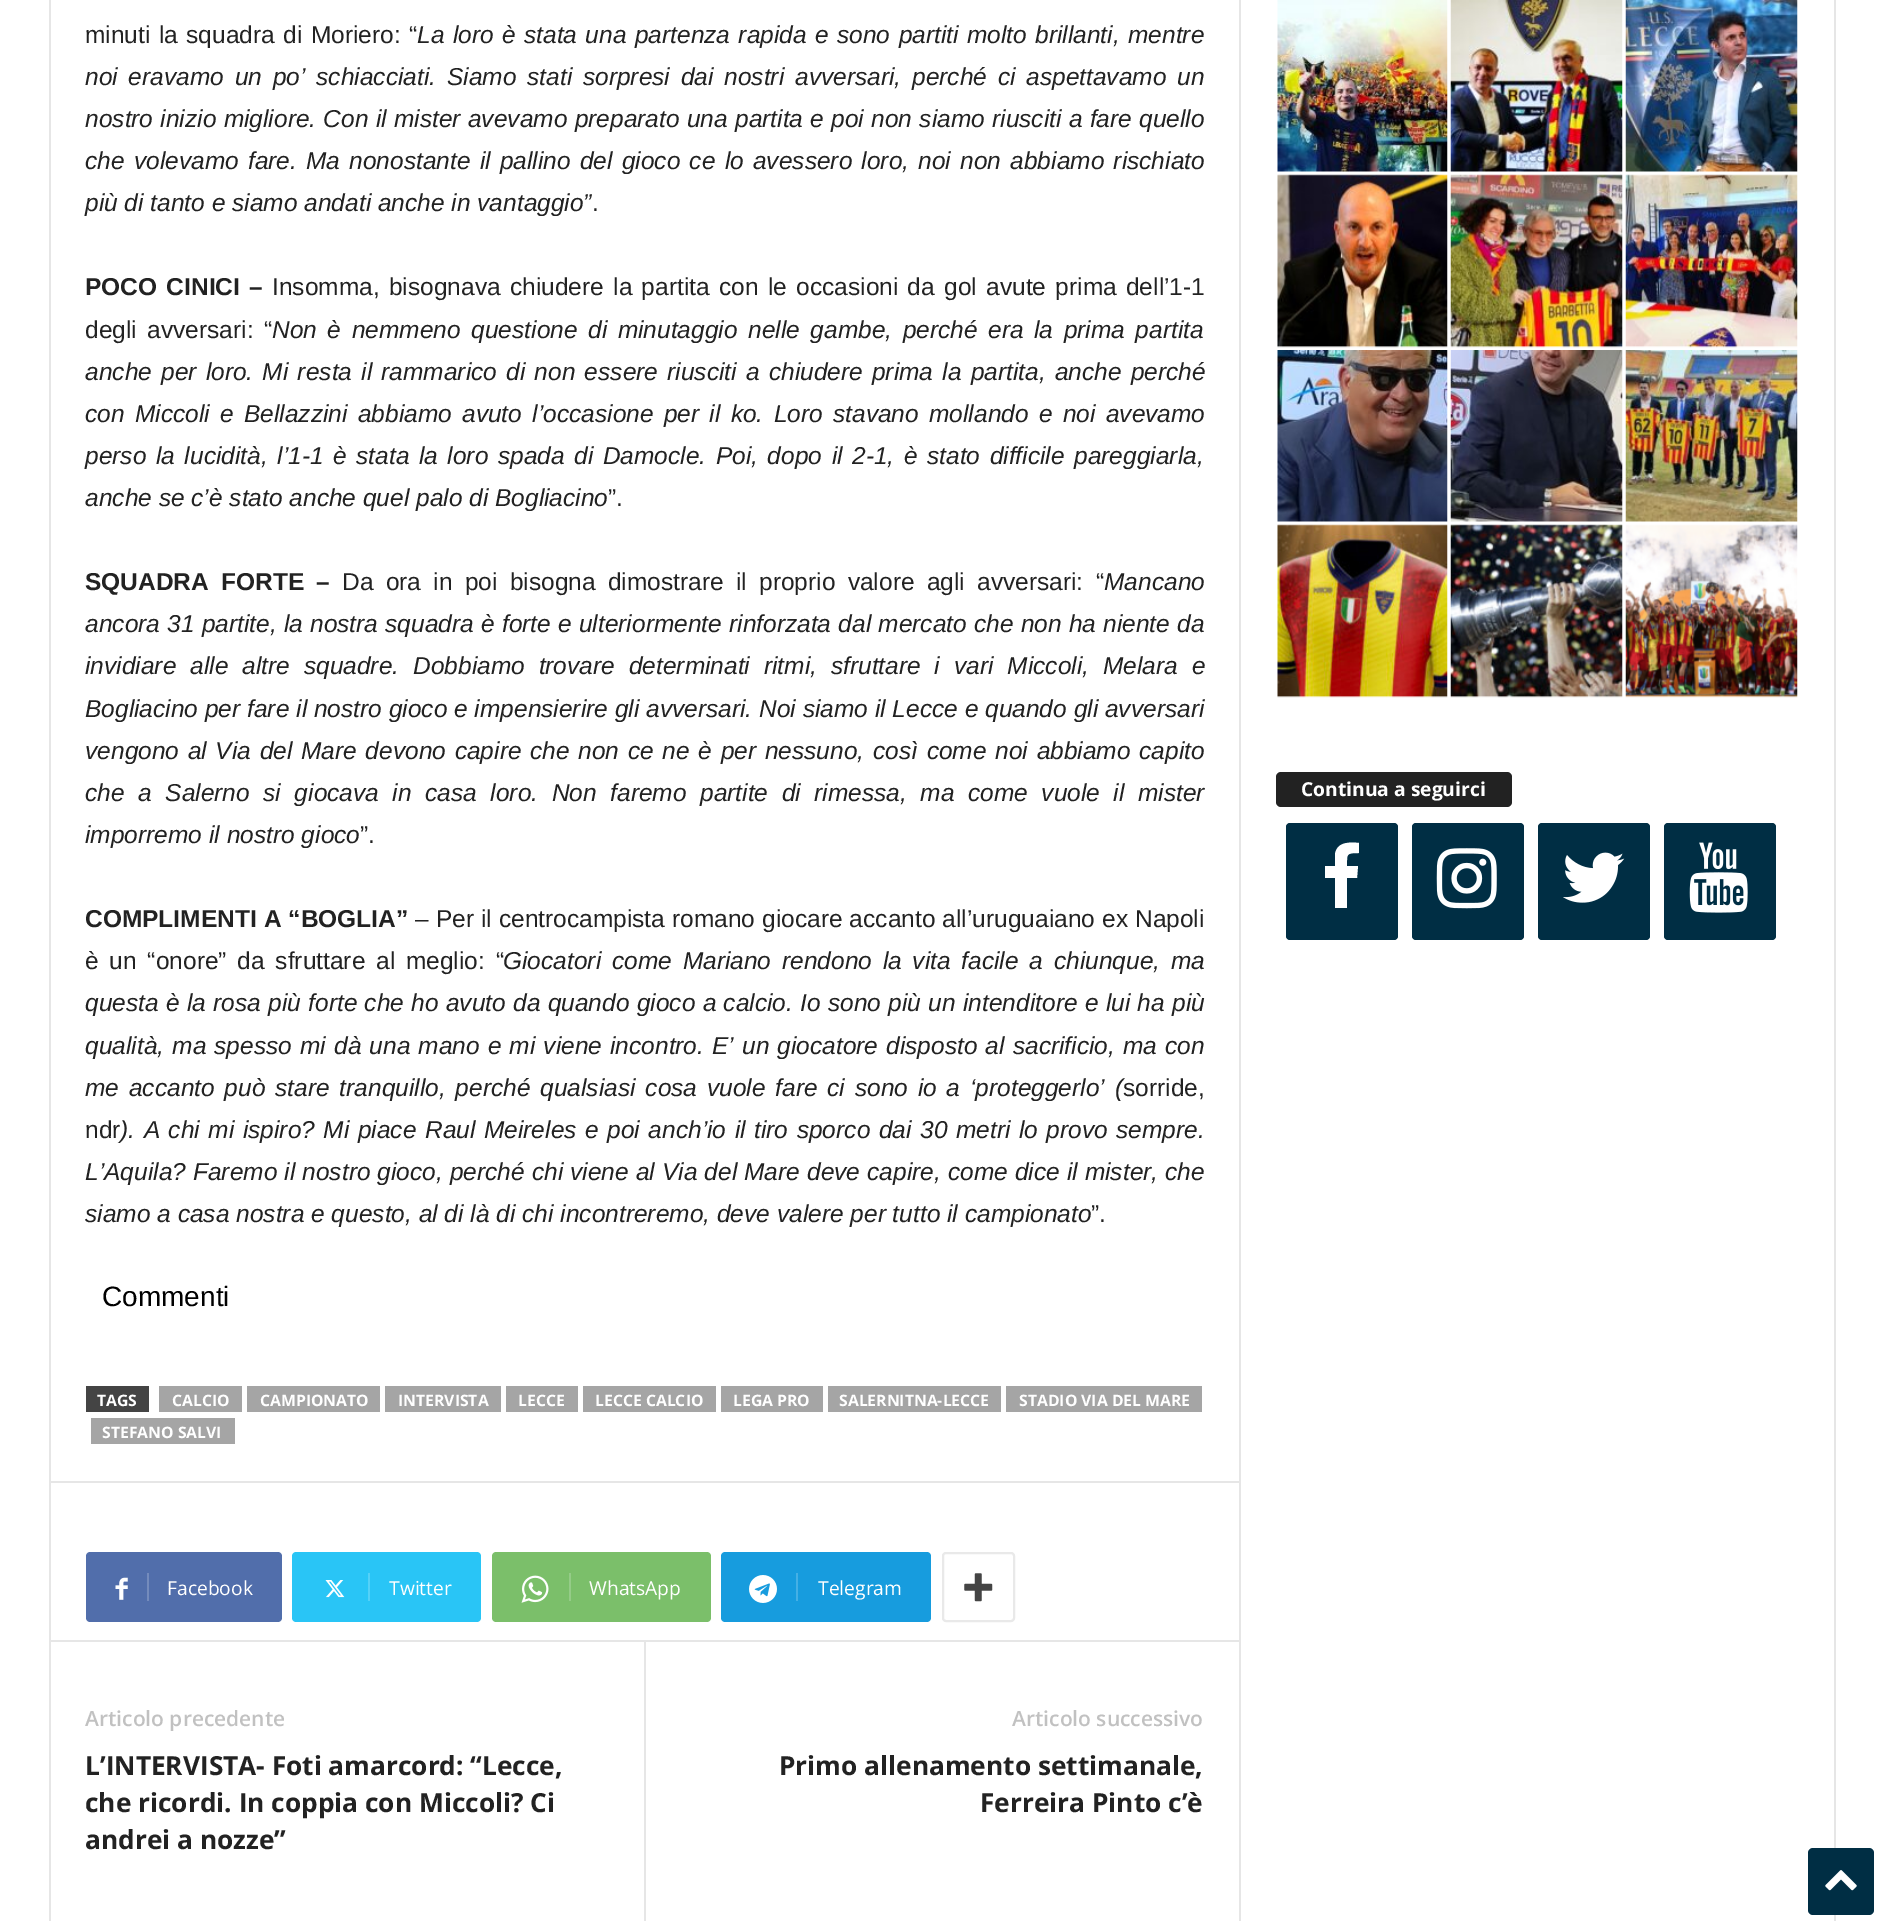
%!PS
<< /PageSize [1882 1921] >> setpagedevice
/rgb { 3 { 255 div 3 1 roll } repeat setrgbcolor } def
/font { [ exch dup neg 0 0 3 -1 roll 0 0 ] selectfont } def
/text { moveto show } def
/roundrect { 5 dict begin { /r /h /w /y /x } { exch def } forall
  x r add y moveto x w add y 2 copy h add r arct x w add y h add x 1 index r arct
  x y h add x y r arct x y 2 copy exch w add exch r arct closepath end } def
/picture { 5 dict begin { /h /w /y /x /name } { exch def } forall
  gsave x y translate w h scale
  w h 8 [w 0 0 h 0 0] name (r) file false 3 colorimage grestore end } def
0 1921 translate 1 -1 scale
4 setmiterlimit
255 255 255 rgb
0 0 1882 1921 rectfill
230 230 230 rgb
49 0 2 1921 rectfill
68 68 68 rgb
86 1386 63 26 rectfill
165 165 165 rgb
159 1386 83 26 rectfill
247 1386 133 26 rectfill
385 1386 116 26 rectfill
506 1386 72 26 rectfill
583 1386 133 26 rectfill
721 1386 102 26 rectfill
828 1386 173 26 rectfill
1006 1386 196 26 rectfill
91 1418 144 26 rectfill
230 230 230 rgb
51 1481 1188 2 rectfill
81 110 171 rgb
147 1552 moveto 131 0 rlineto 2 0 4 2 4 4 rcurveto 0 62 rlineto 0 2 -2 4 -4 4 rcurveto -131 0 rlineto closepath fill
90 1552 moveto 68 0 rlineto 0 70 rlineto -68 0 rlineto -2 0 -4 -2 -4 -4 rcurveto 0 -62 rlineto 0 -2 2 -4 4 -4 rcurveto closepath fill
(img_01.rgb) 115 1577 13 23 picture
116 139 188 rgb
147 1573 2 28 rectfill
41 197 246 rgb
368 1552 moveto 109 0 rlineto 2 0 4 2 4 4 rcurveto 0 62 rlineto 0 2 -2 4 -4 4 rcurveto -109 0 rlineto closepath fill
296 1552 moveto 82 0 rlineto 0 70 rlineto -82 0 rlineto -2 0 -4 -2 -4 -4 rcurveto 0 -62 rlineto 0 -2 2 -4 4 -4 rcurveto closepath fill
(img_02.rgb) 325 1580 20 18 picture
84 209 248 rgb
368 1573 2 28 rectfill
123 191 106 rgb
569 1552 moveto 138 0 rlineto 2 0 4 2 4 4 rcurveto 0 62 rlineto 0 2 -2 4 -4 4 rcurveto -138 0 rlineto closepath fill
496 1552 moveto 83 0 rlineto 0 70 rlineto -83 0 rlineto -2 0 -4 -2 -4 -4 rcurveto 0 -62 rlineto 0 -2 2 -4 4 -4 rcurveto closepath fill
(img_03.rgb) 521 1575 28 28 picture
149 204 136 rgb
569 1573 2 28 rectfill
23 156 222 rgb
796 1552 moveto 131 0 rlineto 2 0 4 2 4 4 rcurveto 0 62 rlineto 0 2 -2 4 -4 4 rcurveto -131 0 rlineto closepath fill
725 1552 moveto 82 0 rlineto 0 70 rlineto -82 0 rlineto -2 0 -4 -2 -4 -4 rcurveto 0 -62 rlineto 0 -2 2 -4 4 -4 rcurveto closepath fill
(img_04.rgb) 749 1575 28 28 picture
69 176 229 rgb
796 1573 2 28 rectfill
233 233 233 rgb
2 setlinewidth
943 1553 71 68 3 roundrect stroke
(img_05.rgb) 964 1573 29 29 picture
230 230 230 rgb
51 1640 1188 2 rectfill
644 1642 2 279 rectfill
1239 0 2 1921 rectfill
(img_06.rgb) 1277 0 171 172 picture
(img_07.rgb) 1450 0 173 172 picture
(img_08.rgb) 1625 0 173 172 picture
(img_09.rgb) 1277 174 171 174 picture
(img_10.rgb) 1450 174 173 174 picture
(img_11.rgb) 1625 174 173 174 picture
(img_12.rgb) 1277 350 171 172 picture
(img_13.rgb) 1450 350 173 172 picture
(img_14.rgb) 1625 350 173 172 picture
(img_15.rgb) 1277 524 171 174 picture
(img_16.rgb) 1450 524 173 174 picture
(img_17.rgb) 1625 524 173 174 picture
34 34 34 rgb
1276 772 236 35 5 roundrect fill
0 46 68 rgb
1286 823 112 117 4 roundrect fill
255 255 255 rgb
1359 843 moveto 0 10 rlineto -13 0 -12 1 -12 13 rcurveto 11 0 rlineto -1 12 rlineto -10 0 rlineto 0 30 rlineto -12 0 rlineto 0 -30 rlineto -10 0 rlineto 0 -12 rlineto 10 0 rlineto 0 -12 rlineto 2 -12 14 -12 24 -11 rcurveto closepath fill
0 46 68 rgb
1412 823 112 117 4 roundrect fill
(img_18.rgb) 1436 848 61 61 picture
1538 823 112 117 4 roundrect fill
(img_19.rgb) 1563 852 62 51 picture
1664 823 112 117 4 roundrect fill
(img_20.rgb) 1689 842 59 71 picture
230 230 230 rgb
1834 0 2 1921 rectfill
0 46 68 rgb
1808 1848 66 67 5 roundrect fill
(img_21.rgb) 1825 1870 32 21 picture
/LiberationSans-Regular 24.5 font
34 34 34 rgb
85 43 moveto 1.6 0 32 (minuti la squadra di Moriero: “) widthshow
/LiberationSans-Italic 24.5 font
417 43 moveto 1.6 0 32 (La loro è stata una partenza rapida e sono partiti molto brillanti, mentre) widthshow
85 85 moveto 4 0 32 (noi eravamo un po’ schiacciati. Siamo stati sorpresi dai nostri avversari, perché ci aspettavamo un) widthshow
85 127 moveto 0.5 0 32 (nostro inizio migliore. Con il mister avevamo preparato una partita e poi non siamo riusciti a fare quello) widthshow
85 169 moveto 2.4 0 32 (che volevamo fare. Ma nonostante il pallino del gioco ce lo avessero loro, noi non abbiamo rischiato) widthshow
(più di tanto e siamo andati anche in vantaggio”) 85 211 text
/LiberationSans-Regular 24.5 font
(.) 592 211 text
/LiberationSans-Bold 24.5 font
85 295 moveto 2.5 0 32 (POCO CINICI –) widthshow
/LiberationSans-Regular 24.5 font
272 295 moveto 2.5 0 32 (Insomma, bisognava chiudere la partita con le occasioni da gol avute prima dell’1-1) widthshow
85 338 moveto 3.75 0 32 (degli avversari: “) widthshow
/LiberationSans-Italic 24.5 font
272 338 moveto 3.75 0 32 (Non è nemmeno questione di minutaggio nelle gambe, perché era la prima partita) widthshow
85 380 moveto 2.4 0 32 (anche per loro. Mi resta il rammarico di non essere riusciti a chiudere prima la partita, anche perché) widthshow
85 422 moveto 3.5 0 32 (con Miccoli e Bellazzini abbiamo avuto l’occasione per il ko. Loro stavano mollando e noi avevamo) widthshow
85 464 moveto 2.75 0 32 (perso la lucidità, l’1-1 è stata la loro spada di Damocle. Poi, dopo il 2-1, è stato difficile pareggiarla,) widthshow
(anche se c’è stato anche quel palo di Bogliacino) 85 506 text
/LiberationSans-Regular 24.5 font
(”.) 608 506 text
/LiberationSans-Bold 24.5 font
85 590 moveto 5.5 0 32 (SQUADRA FORTE –) widthshow
/LiberationSans-Regular 24.5 font
342 590 moveto 5.5 0 32 (Da ora in poi bisogna dimostrare il proprio valore agli avversari: “) widthshow
/LiberationSans-Italic 24.5 font
(Mancano) 1104 590 text
85 632 moveto 0.4 0 32 (ancora 31 partite, la nostra squadra è forte e ulteriormente rinforzata dal mercato che non ha niente da) widthshow
85 674 moveto 7.1 0 32 (invidiare alle altre squadre. Dobbiamo trovare determinati ritmi, sfruttare i vari Miccoli, Melara e) widthshow
(Bogliacino per fare il nostro gioco e impensierire gli avversari. Noi siamo il Lecce e quando gli avversari) 85 717 text
85 759 moveto 1.9 0 32 (vengono al Via del Mare devono capire che non ce ne è per nessuno, così come noi abbiamo capito) widthshow
85 801 moveto 6.75 0 32 (che a Salerno si giocava in casa loro. Non faremo partite di rimessa, ma come vuole il mister) widthshow
(imporremo il nostro gioco) 85 843 text
/LiberationSans-Regular 24.5 font
(”.) 360 843 text
/LiberationSans-Bold 24.5 font
85 927 moveto 0.25 0 32 (COMPLIMENTI A “BOGLIA”) widthshow
/LiberationSans-Regular 24.5 font
415 927 moveto 0.25 0 32 (– Per il centrocampista romano giocare accanto all’uruguaiano ex Napoli) widthshow
85 969 moveto 4 0 32 (è un “onore” da sfruttare al meglio: “) widthshow
/LiberationSans-Italic 24.5 font
503 969 moveto 4 0 32 (Giocatori come Mariano rendono la vita facile a chiunque, ma) widthshow
85 1011 moveto 0.5 0 32 (questa è la rosa più forte che ho avuto da quando gioco a calcio. Io sono più un intenditore e lui ha più) widthshow
85 1054 moveto 1.3 0 32 (qualità, ma spesso mi dà una mano e mi viene incontro. E’ un giocatore disposto al sacrificio, ma con) widthshow
85 1096 moveto 3 0 32 (me accanto può stare tranquillo, perché qualsiasi cosa vuole fare ci sono io a ‘proteggerlo’ \() widthshow
/LiberationSans-Regular 24.5 font
(sorride,) 1123 1096 text
(ndr) 85 1138 text
/LiberationSans-Italic 24.5 font
120 1138 moveto 1.75 0 32 (\). A chi mi ispiro? Mi piace Raul Meireles e poi anch’io il tiro sporco dai 30 metri lo provo sempre.) widthshow
85 1180 moveto 0.25 0 32 (L’Aquila? Faremo il nostro gioco, perché chi viene al Via del Mare deve capire, come dice il mister, che) widthshow
(siamo a casa nostra e questo, al di là di chi incontreremo, deve valere per tutto il campionato) 85 1222 text
/LiberationSans-Regular 24.5 font
(”.) 1091 1222 text
/LiberationSans-Regular 28 font
0 0 0 rgb
(Commenti) 102 1306 text
/OpenSans-Bold 15.75 font
255 255 255 rgb
(TAGS) 97 1406 text
(CALCIO) 172 1406 text
(CAMPIONATO) 260 1406 text
(INTERVISTA) 398 1406 text
(LECCE) 518 1406 text
(LECCE CALCIO) 595 1406 text
(LEGA PRO) 733 1406 text
(SALERNITNA-LECCE) 839 1406 text
(STADIO VIA DEL MARE) 1019 1406 text
(STEFANO SALVI) 102 1438 text
/OpenSans-Regular 19.25 font
(Facebook) 167 1595 text
(Twitter) 389 1595 text
(WhatsApp) 589 1595 text
(Telegram) 818 1595 text
/OpenSans-SemiBold 21 font
193 193 193 rgb
(Articolo precedente) 85 1726 text
/OpenSans-Bold 26.25 font
34 34 34 rgb
(L’INTERVISTA- Foti amarcord: “Lecce,) 85 1775 text
(che ricordi. In coppia con Miccoli? Ci) 85 1812 text
(andrei a nozze”) 85 1849 text
/OpenSans-SemiBold 21 font
193 193 193 rgb
(Articolo successivo) 1012 1726 text
/OpenSans-Bold 26.25 font
34 34 34 rgb
(Primo allenamento settimanale,) 779 1775 text
(Ferreira Pinto c’è) 980 1812 text
/OpenSans-Bold 19.25 font
255 255 255 rgb
(Continua a seguirci) 1301 796 text
showpage
